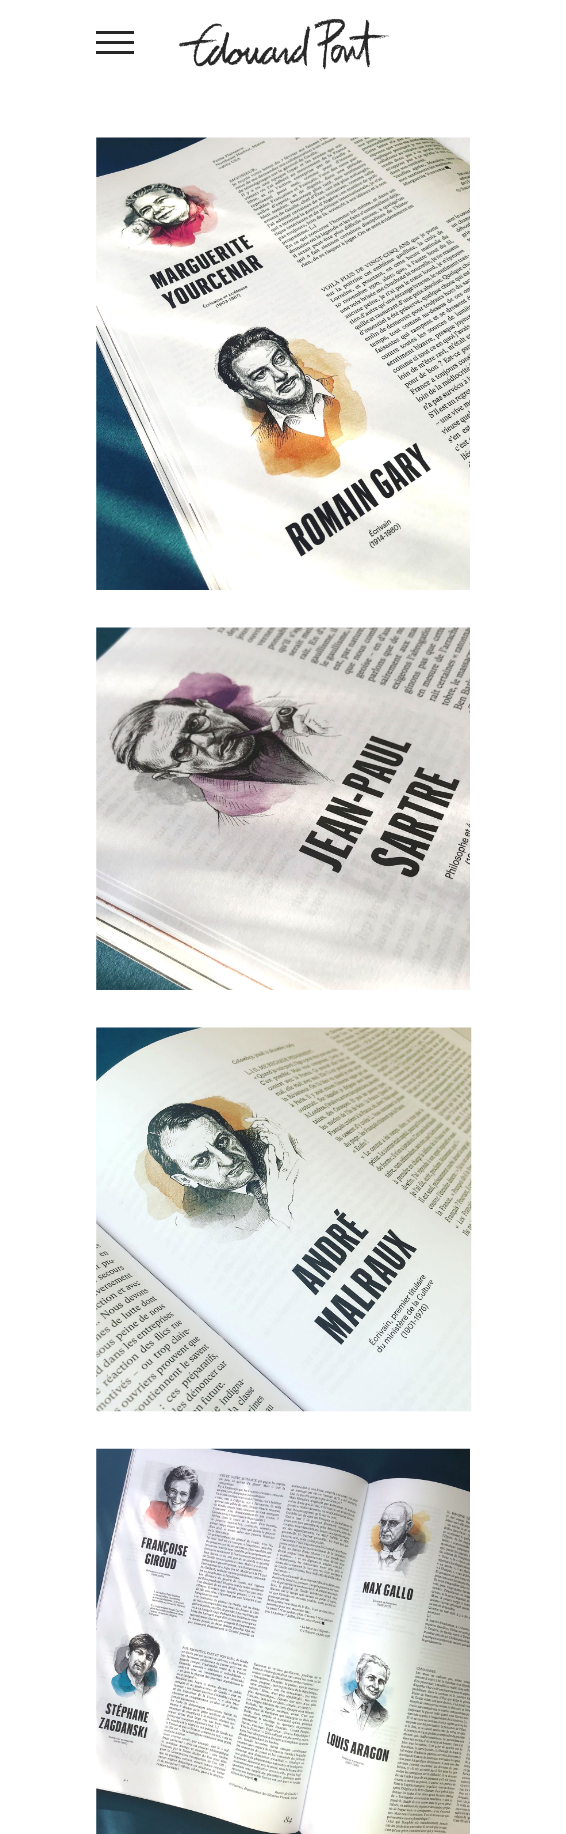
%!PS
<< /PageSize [566 1834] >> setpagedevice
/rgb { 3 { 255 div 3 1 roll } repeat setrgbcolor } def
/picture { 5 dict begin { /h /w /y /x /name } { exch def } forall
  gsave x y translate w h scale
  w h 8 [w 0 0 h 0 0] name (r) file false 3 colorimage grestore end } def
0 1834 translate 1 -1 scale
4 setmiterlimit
255 255 255 rgb
0 0 566 1834 rectfill
38 38 38 rgb
96 31 38 3 rectfill
96 41 38 3 rectfill
96 51 38 3 rectfill
(img_01.rgb) 179 18 210 52 picture
(img_02.rgb) 96 137 374 453 picture
(img_03.rgb) 96 627 374 363 picture
(img_04.rgb) 96 1027 376 385 picture
(img_05.rgb) 96 1448 374 386 picture
showpage
